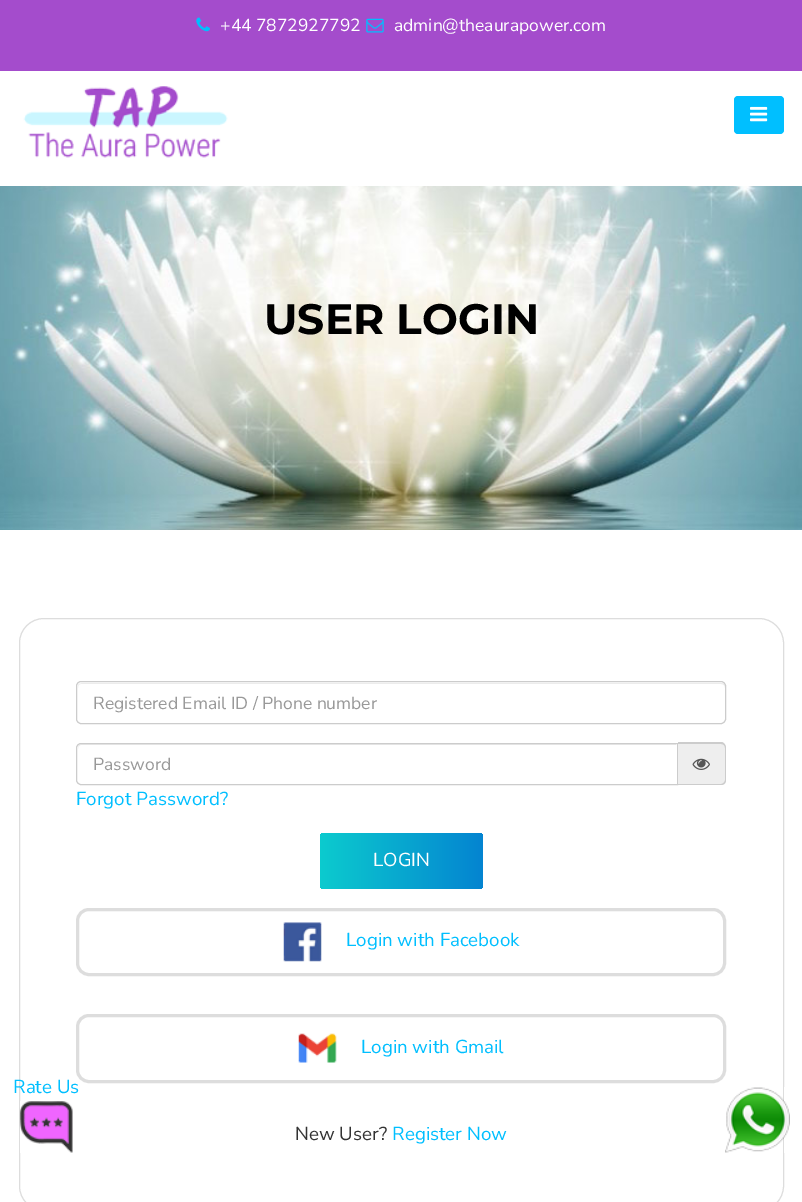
%!PS
<< /PageSize [802 1202] >> setpagedevice
/rgb { 3 { 255 div 3 1 roll } repeat setrgbcolor } def
/font { [ exch dup neg 0 0 3 -1 roll 0 0 ] selectfont } def
/text { moveto show } def
/roundrect { 5 dict begin { /r /h /w /y /x } { exch def } forall
  x r add y moveto x w add y 2 copy h add r arct x w add y h add x 1 index r arct
  x y h add x y r arct x y 2 copy exch w add exch r arct closepath end } def
/picture { 5 dict begin { /h /w /y /x /name } { exch def } forall
  gsave x y translate w h scale
  w h 8 [w 0 0 h 0 0] name (r) file false 3 colorimage grestore end } def
0 1202 translate 1 -1 scale
4 setmiterlimit
255 255 255 rgb
0 0 802 1202 rectfill
164 76 204 rgb
0 0 802 71 rectfill
(img_01.rgb) 196 17 14 15 picture
(img_02.rgb) 366 18 18 15 picture
(img_03.rgb) 23 86 205 72 picture
0 191 255 rgb
734 96 50 38 4 roundrect fill
(img_04.rgb) 750 106 18 16 picture
(img_05.rgb) 0 186 802 344 picture
221 221 221 rgb
19.5 618.5 764 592 24.5 roundrect stroke
(img_06.rgb) 19 1101 54 52 picture
(img_07.rgb) 725 1087 65 66 picture
236 236 236 rgb
81 684 moveto 640 0 rlineto 2 0 4 1 4 4 rcurveto 0 -3 -1 -5 -4 -5 rcurveto -639 0 rlineto -3 1 rlineto -1 1 rlineto 0 3 rlineto 0 -3 1 -4 3 -4 rcurveto closepath fill
204 204 204 rgb
76.5 681.5 649 42 4.5 roundrect stroke
236 236 236 rgb
81 745 moveto 595 0 rlineto 0 -1 rlineto -594 0 rlineto -3 0 -4 2 -4 5 rcurveto 0 -2 1 -4 3 -4 rcurveto closepath fill
204 204 204 rgb
81 743.5 moveto 596.5 0 rlineto 0 41 rlineto -596.5 0 rlineto -2.5 0 -4.5 -2 -4.5 -4.5 rcurveto 0 -32 rlineto 0 -2.5 2 -4.5 4.5 -4.5 rcurveto closepath stroke
238 238 238 rgb
678 743 moveto 43 0 rlineto 3 0 5 2 5 5 rcurveto 0 32 rlineto 0 3 -2 5 -5 5 rcurveto -43 0 rlineto closepath fill
204 204 204 rgb
678 742 moveto 43 0 rlineto 3 0 5 3 5 6 rcurveto 0 32 rlineto 0 3 -2 5 -5 5 rcurveto -43 0 rlineto closepath 678 744 moveto 43 0 rlineto 2 0 4 1 4 4 rcurveto 0 32 rlineto 0 2 -2 4 -4 4 rcurveto -43 0 rlineto closepath eofill
(img_08.rgb) 692 758 18 12 picture
gsave 320 833 163 56 4 roundrect clip newpath
<< /ShadingType 2 /ColorSpace /DeviceRGB /Coords [320 861 483 861] /Extend [true true] /Function << /FunctionType 2 /Domain [0 1] /C0 [0.047 0.796 0.808] /C1 [0.016 0.518 0.82] /N 1 >> >> shfill grestore
221 221 221 rgb
3 setlinewidth
77.5 909.5 647 65 11.5 roundrect stroke
(img_09.rgb) 283 922 39 40 picture
77.5 1015.5 647 66 11.5 roundrect stroke
(img_10.rgb) 298 1033 39 30 picture
/NunitoSans-Regular 17.5 font
255 255 255 rgb
(+44 7872927792) 220 31 text
(admin@theaurapower.com) 394 31 text
/Montserrat-Bold 42.5 font
0 0 0 rgb
(USER LOGIN) 264 334 text
/NunitoSans-Regular 18.75 font
0 191 255 rgb
(Rate Us) 13 1093 text
/NunitoSans-Regular 17.5 font
153 153 153 rgb
(Registered Email ID / Phone number) 93 709 text
(Password) 93 770 text
/NunitoSans-Regular 18.75 font
0 191 255 rgb
(Forgot Password?) 76 805 text
255 255 255 rgb
(LOGIN) 373 866 text
0 191 255 rgb
(Login with Facebook) 346 946 text
(Login with Gmail) 361 1053 text
51 51 51 rgb
(New User?) 295 1140 text
0 191 255 rgb
(Register Now) 392 1140 text
showpage
